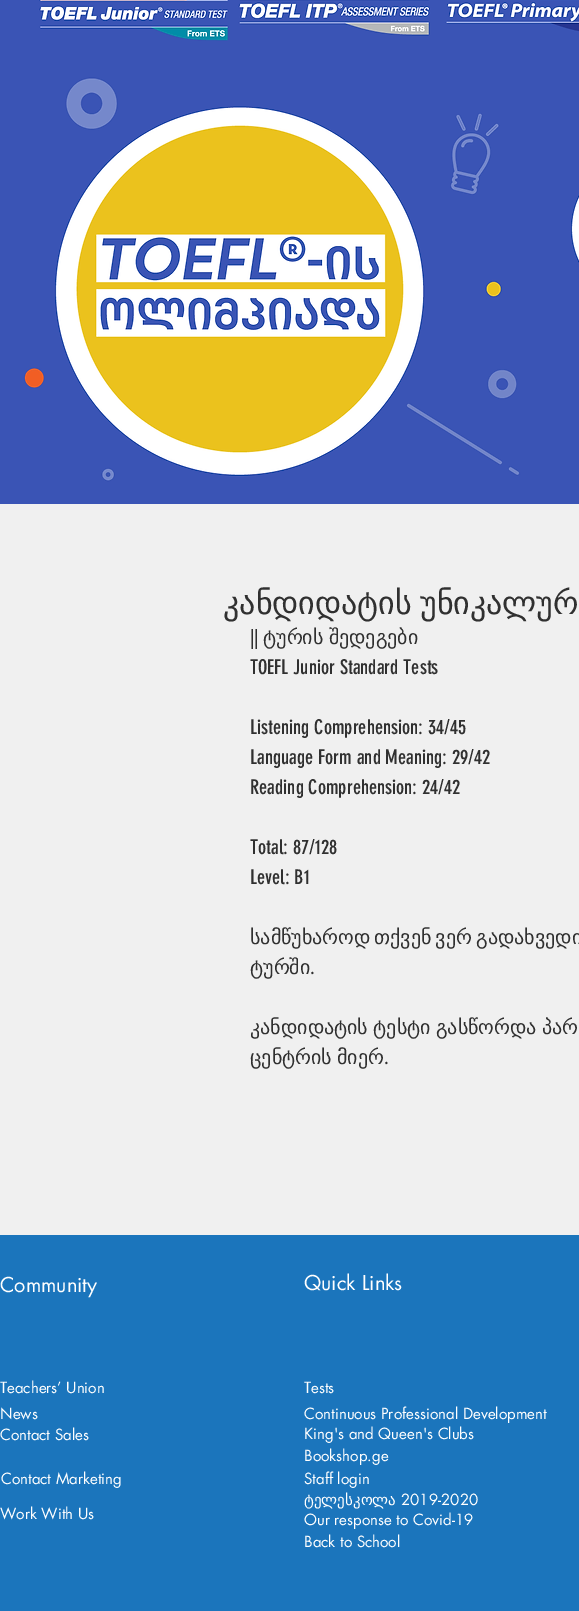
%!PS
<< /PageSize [579 1611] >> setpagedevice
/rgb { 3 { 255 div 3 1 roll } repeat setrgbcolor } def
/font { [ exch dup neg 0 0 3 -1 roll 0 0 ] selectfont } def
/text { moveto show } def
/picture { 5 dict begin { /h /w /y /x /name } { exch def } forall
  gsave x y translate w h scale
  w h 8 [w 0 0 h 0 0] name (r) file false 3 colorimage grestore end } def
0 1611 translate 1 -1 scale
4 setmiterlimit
240 240 240 rgb
0 0 579 1611 rectfill
(img_01.rgb) 0 0 579 504 picture
27 117 188 rgb
0 1235 579 376 rectfill
/DejaVuSans-Regular 32 font
48 48 48 rgb
223 614 moveto -2 0 32 (კანდიდატის უნიკალურ) widthshow
/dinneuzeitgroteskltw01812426-Regular 20 font
(||) 250 644 text
/DejaVuSans-Regular 20 font
263 644 moveto -1 0 32 (ტურის შედეგები) widthshow
/dinneuzeitgroteskltw01812426-Regular 20 font
(TOEFL Junior Standard Tests) 250 674 text
(Listening Comprehension: 34/45) 250 734 text
(Language Form and Meaning: 29/42) 250 764 text
(Reading Comprehension: 24/42) 250 794 text
(Total: 87/128) 250 854 text
(Level: B1) 250 884 text
/DejaVuSans-Regular 20 font
(სამწუხაროდ) 250 944 text
374 944 moveto -2 0 32 (თქვენ ვერ გადახვედი) widthshow
(ტურში) 250 974 text
/dinneuzeitgroteskltw01812426-Regular 20 font
(.) 310 974 text
/DejaVuSans-Regular 20 font
250 1034 moveto -1 0 32 (კანდიდატის ტესტი გასწორდა პარ) widthshow
(ცენტრის) 250 1064 text
(მიერ) 337 1064 text
/dinneuzeitgroteskltw01812426-Regular 20 font
(.) 384 1064 text
/futura-Regular 20 font
255 255 255 rgb
(Community) 0 1292 text
(Quick Links) 304 1290 text
/futura-Regular 15 font
(Teachers’ Union) 0 1393 text
(Tests) 304 1393 text
(News) 0 1419 text
(Continuous Professional Development) 304 1419 text
(Contact Sales) 0 1440 text
(King's and Queen's Clubs) 304 1439 text
(Bookshop.ge) 304 1461 text
(Contact Marketing) 1 1484 text
(Staff login) 304 1484 text
/DejaVuSans-Regular 15 font
(ტელესკოლა) 304 1505 text
/futura-Regular 15 font
(2019-2020) 401 1505 text
(Work With Us) 0 1519 text
(Our response to Covid-19) 304 1525 text
(Back to School) 304 1547 text
showpage
